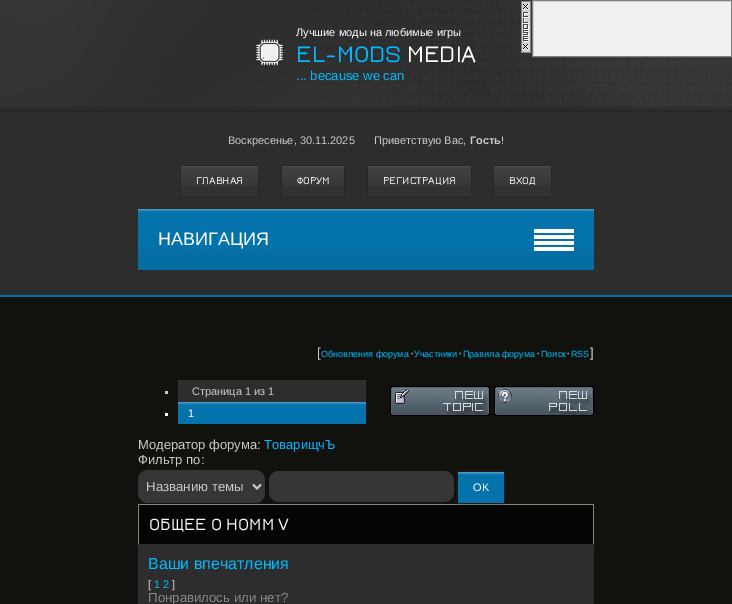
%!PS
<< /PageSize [732 604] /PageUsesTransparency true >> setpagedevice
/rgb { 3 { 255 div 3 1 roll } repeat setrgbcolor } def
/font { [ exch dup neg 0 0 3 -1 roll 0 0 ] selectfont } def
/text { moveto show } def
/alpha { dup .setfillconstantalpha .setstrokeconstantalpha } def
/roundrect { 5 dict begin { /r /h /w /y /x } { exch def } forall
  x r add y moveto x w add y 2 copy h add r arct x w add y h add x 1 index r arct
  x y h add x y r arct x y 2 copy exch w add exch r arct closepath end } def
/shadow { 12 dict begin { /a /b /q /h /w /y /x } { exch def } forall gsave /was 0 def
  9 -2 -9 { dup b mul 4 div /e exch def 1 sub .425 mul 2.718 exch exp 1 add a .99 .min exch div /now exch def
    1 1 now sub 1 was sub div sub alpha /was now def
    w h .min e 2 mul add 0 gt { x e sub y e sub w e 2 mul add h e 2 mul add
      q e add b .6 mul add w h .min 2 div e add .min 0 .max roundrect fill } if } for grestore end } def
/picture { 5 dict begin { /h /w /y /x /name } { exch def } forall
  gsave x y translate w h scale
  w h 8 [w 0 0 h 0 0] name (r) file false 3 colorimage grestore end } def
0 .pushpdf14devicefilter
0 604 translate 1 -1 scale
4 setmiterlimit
45 45 45 rgb
0 0 732 604 rectfill
37 37 37 rgb
0 111 732 1 rectfill
(img_01.rgb) 0 0 732 111 picture
(img_02.rgb) 256 39 27 27 picture
34 34 34 rgb
181 166 77 30 0 1.5 1 shadow
50 50 50 rgb
181 186 77 10 rectfill
(img_03.rgb) 181 166 77 20 picture
34 34 34 rgb
282 166 62 30 0 1.5 1 shadow
50 50 50 rgb
282 186 62 10 rectfill
(img_04.rgb) 282 166 62 20 picture
34 34 34 rgb
368 166 103 30 0 1.5 1 shadow
50 50 50 rgb
368 186 103 10 rectfill
(img_05.rgb) 368 166 103 20 picture
34 34 34 rgb
494 166 57 30 0 1.5 1 shadow
50 50 50 rgb
494 186 57 10 rectfill
(img_06.rgb) 494 166 57 20 picture
4 115 172 rgb
0 295 732 2 rectfill
4 109 163 rgb
138 251 456 19 rectfill
(img_07.rgb) 138 209 456 42 picture
255 255 255 rgb
534 229 40 4 rectfill
534 235 40 4 rectfill
534 241 40 4 rectfill
534 247 40 4 rectfill
17 18 14 rgb
0 297 732 307 rectfill
(img_08.rgb) 521 1 10 52 picture
240 240 240 rgb
532.5 0.5 moveto 199 0 rlineto 0 56 rlineto -199 0 rlineto closepath gsave fill grestore
128 128 128 rgb
stroke
45 45 45 rgb
178 380 188 22 rectfill
202 202 202 rgb
165 391 3 3 rectfill
(img_09.rgb) 178 402 188 22 picture
255 255 255 rgb
165 413 3 3 rectfill
(img_10.rgb) 390 386 100 30 picture
(img_11.rgb) 494 386 100 30 picture
54 54 54 rgb
138 470 127 33 10 roundrect fill
198 198 198 rgb
2 setlinewidth
253 484.5 moveto 4 4 rlineto 4 -4 rlineto stroke
54 54 54 rgb
269 471 185 31 10 roundrect fill
5 5 4 rgb
138 504 456 41 rectfill
135 135 134 rgb
138 504 moveto 456 0 rlineto -1 1 rlineto -454 0 rlineto closepath fill
34 34 34 rgb
458 472 46 31 0 1.5 1 shadow
(img_12.rgb) 458 472 46 31 picture
0.7 alpha
190 190 190 rgb
594 504 moveto 0 41 rlineto -1 -1 rlineto 0 -39 rlineto closepath fill
1 alpha
41 41 41 rgb
594 545 moveto -456 0 rlineto 1 -1 rlineto 454 0 rlineto closepath fill
0.7 alpha
190 190 190 rgb
138 545 moveto 0 -41 rlineto 1 1 rlineto 0 39 rlineto closepath fill
1 alpha
45 45 45 rgb
138 545 456 59 rectfill
/LiberationSans-Regular 11 font
255 255 255 rgb
(Лучшие моды на любимые игры) 296 36 text
/Jura-SemiBold 25 font
0 186 255 rgb
(EL-MODS) 296 62 text
255 255 255 rgb
(MEDIA) 407 62 text
/LiberationSans-Regular 13 font
0 186 255 rgb
(... because we can) 296 80 text
/LiberationSans-Regular 11 font
202 202 202 rgb
(Воскресенье, 30.11.2025) 228 144 text
(Приветствую Вас,) 374 144 text
/LiberationSans-Bold 11 font
(Гость) 470 144 text
/LiberationSans-Regular 11 font
(!) 501 144 text
/Jura-SemiBold 11 font
255 255 255 rgb
(ГЛАВНАЯ) 196 184 text
(ФОРУМ) 297 184 text
(РЕГИСТРАЦИЯ) 383 184 text
(ВХОД) 509 184 text
/LiberationSans-Regular 18 font
(НАВИГАЦИЯ) 158 245 text
/LiberationSans-Regular 13 font
202 202 202 rgb
([) 317 357 text
/LiberationSans-Regular 9 font
0 186 255 rgb
(Обновления форума) 321 357 text
/LiberationSans-Regular 13 font
202 202 202 rgb
(·) 410 357 text
/LiberationSans-Regular 9 font
0 186 255 rgb
(Участники) 414 357 text
/LiberationSans-Regular 13 font
202 202 202 rgb
(·) 458 357 text
/LiberationSans-Regular 9 font
0 186 255 rgb
(Правила форума) 463 357 text
/LiberationSans-Regular 13 font
202 202 202 rgb
(·) 536 357 text
/LiberationSans-Regular 9 font
0 186 255 rgb
(Поиск) 541 357 text
/LiberationSans-Regular 13 font
202 202 202 rgb
(·) 566 357 text
/LiberationSans-Regular 9 font
0 186 255 rgb
(RSS) 571 357 text
/LiberationSans-Regular 13 font
202 202 202 rgb
(]) 590 357 text
/LiberationSans-Regular 11 font
(Страница 1 из 1) 192 395 text
255 255 255 rgb
(1) 188 417 text
/LiberationSans-Regular 13 font
202 202 202 rgb
(Модератор форума:) 138 449 text
0 186 255 rgb
(ТоварищчЪ) 264 449 text
202 202 202 rgb
(Фильтр по:) 138 464 text
/LiberationSans-Regular 13.25 font
(Названию темы) 146 491 text
/LiberationSans-Regular 11 font
255 255 255 rgb
(OK) 473 491 text
/Jura-SemiBold 18 font
(ОБЩЕЕ О HOMM V) 149 530 text
/LiberationSans-Regular 16 font
0 186 255 rgb
(Ваши впечатления) 148 569 text
/LiberationSans-Regular 11 font
202 202 202 rgb
([) 148 588 text
0 186 255 rgb
(1 2) 154 588 text
202 202 202 rgb
(]) 172 588 text
/LiberationSans-Regular 13.25 font
136 136 136 rgb
(Понравилось или нет?) 148 602 text
.poppdf14devicefilter showpage
